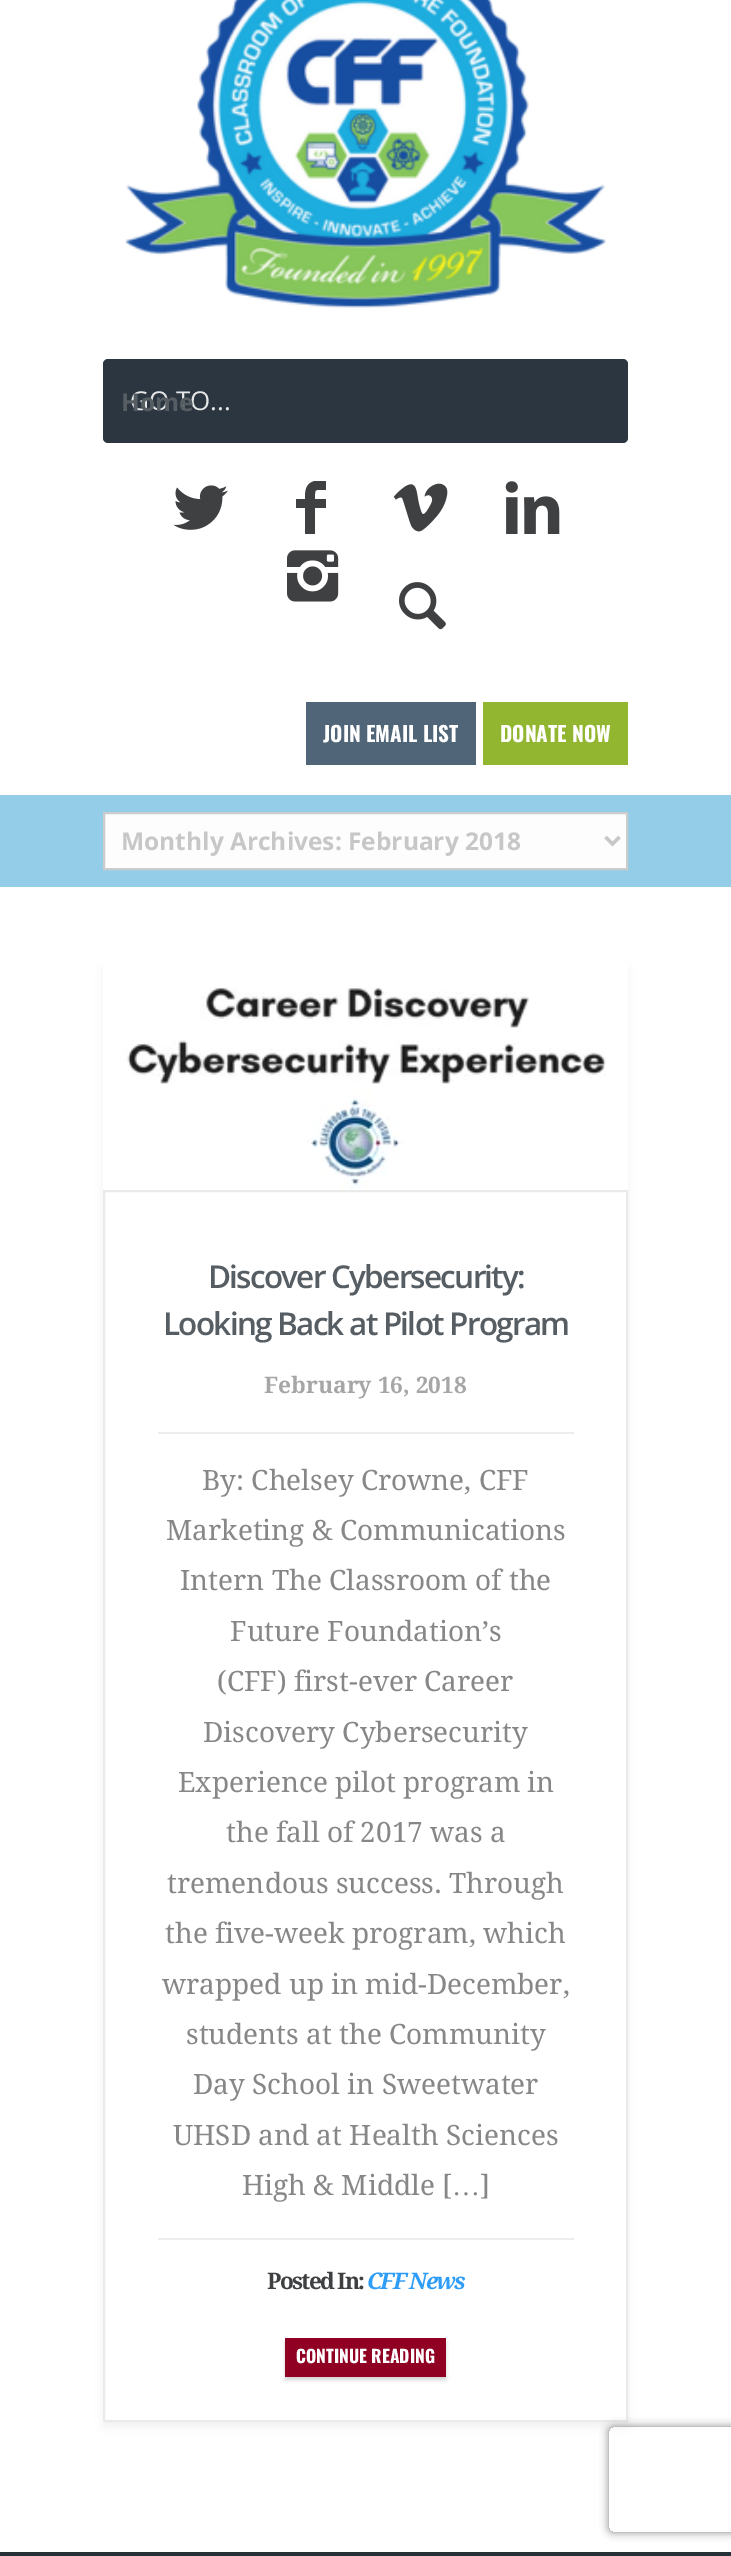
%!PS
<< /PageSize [731 2556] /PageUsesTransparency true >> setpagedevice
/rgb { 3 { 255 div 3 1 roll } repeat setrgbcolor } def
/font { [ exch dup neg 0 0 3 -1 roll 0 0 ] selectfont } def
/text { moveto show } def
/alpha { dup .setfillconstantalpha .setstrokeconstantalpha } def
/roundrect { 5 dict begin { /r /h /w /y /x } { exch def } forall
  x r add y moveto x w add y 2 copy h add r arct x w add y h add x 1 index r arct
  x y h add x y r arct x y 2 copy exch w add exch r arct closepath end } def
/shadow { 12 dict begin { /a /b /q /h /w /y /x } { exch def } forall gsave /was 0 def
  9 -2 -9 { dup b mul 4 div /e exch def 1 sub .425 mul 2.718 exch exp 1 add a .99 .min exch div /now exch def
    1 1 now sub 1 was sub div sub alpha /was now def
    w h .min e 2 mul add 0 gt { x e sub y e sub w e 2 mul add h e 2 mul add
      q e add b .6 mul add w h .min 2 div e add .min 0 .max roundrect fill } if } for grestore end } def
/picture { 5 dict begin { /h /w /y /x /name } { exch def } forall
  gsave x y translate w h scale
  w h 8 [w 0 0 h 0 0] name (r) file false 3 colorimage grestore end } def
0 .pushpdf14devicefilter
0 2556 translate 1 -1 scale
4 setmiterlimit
255 255 255 rgb
0 0 731 2556 rectfill
(img_01.rgb) 125 0 481 308 picture
44 54 64 rgb
103 359 525 84 5 roundrect fill
(img_02.rgb) 173 485 55 45 picture
62 64 66 rgb
326 490 moveto -12 0 -11 -2 -11 9 rcurveto 11 0 rlineto 0 9 rlineto -11 0 rlineto 0 26 rlineto -10 0 rlineto 0 -26 rlineto -9 0 rlineto 0 -9 rlineto 9 0 rlineto 0 -7 0 -16 10 -18 rcurveto 11 0 rlineto closepath fill
(img_03.rgb) 393 483 55 49 picture
(img_04.rgb) 505 481 55 53 picture
(img_05.rgb) 287 550 52 52 picture
(img_06.rgb) 399 582 47 48 picture
80 102 120 rgb
306 702 170 63 rectfill
147 182 49 rgb
483 702 145 63 rectfill
147 205 232 rgb
0 795 731 92 rectfill
253 253 253 rgb
104 813 moveto 523 0 rlineto 0 56 rlineto -523 0 rlineto closepath gsave fill grestore
204 204 204 rgb
2 setlinewidth
stroke
199 199 199 rgb
3.5 setlinewidth
605.5 837 moveto 7 7 rlineto 7 -7 rlineto stroke
gsave
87 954 moveto 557 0 rlineto 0 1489 rlineto -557 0 rlineto closepath 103 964 moveto 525 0 rlineto 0 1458 rlineto -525 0 rlineto closepath eoclip newpath
0 0 0 rgb
103 970 525 1457 0 5 0.06 shadow
grestore
(img_07.rgb) 125 987 481 202 picture
234 234 234 rgb
2 setlinewidth
104 1191 523 1230 rectstroke
237 237 237 rgb
158 1432 416 2 rectfill
158 2238 416 2 rectfill
0 0 0 rgb
285 2342 161 38 0 2 0.17 shadow
144 0 35 rgb
285 2338 161 39 rectfill
38 48 55 rgb
0 2552 731 4 rectfill
gsave
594 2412 moveto 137 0 rlineto 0 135 rlineto -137 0 rlineto closepath 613 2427 moveto 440 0 rlineto 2 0 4 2 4 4 rcurveto 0 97 rlineto 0 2 -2 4 -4 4 rcurveto -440 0 rlineto -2 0 -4 -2 -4 -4 rcurveto 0 -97 rlineto 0 -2 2 -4 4 -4 rcurveto closepath eoclip newpath
128 128 128 rgb
609 2427 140 105 4 4.5 1 shadow
grestore
/OpenSans-Regular 26 font
229 231 232 rgb
(GO TO...) 130 410 text
/OpenSans-Bold 24.5 font
86 93 99 rgb
(Home) 121 411 text
/Oswald-Bold 21 font
255 255 255 rgb
(JOIN EMAIL LIST) 323 742 text
(DONATE NOW) 500 742 text
/OpenSans-Bold 24.5 font
199 199 199 rgb
(Monthly Archives: February 2018) 121 850 text
/OpenSans-SemiBold 31.5 font
86 93 99 rgb
208 1288 moveto -1.75 0 (Discover Cybersecurity:) ashow
163 1335 moveto -1.75 0 (Looking Back at Pilot Program) ashow
/DroidSerif-Bold 22.75 font
166 166 166 rgb
(February 16, 2018) 264 1393 text
/DroidSerif-Regular 28 font
135 135 135 rgb
(By: Chelsey Crowne, CFF) 202 1490 text
(Marketing & Communications) 166 1540 text
(Intern The Classroom of the) 180 1590 text
(Future Foundation’s) 230 1641 text
(\(CFF\) first-ever Career) 217 1691 text
(Discovery Cybersecurity) 203 1742 text
(Experience pilot program in) 178 1792 text
(the fall of 2017 was a) 226 1842 text
(tremendous success. Through) 167 1893 text
(the five-week program, which) 165 1943 text
(wrapped up in mid-December,) 162 1994 text
(students at the Community) 186 2044 text
(Day School in Sweetwater) 193 2094 text
(UHSD and at Health Sciences) 173 2145 text
(High & Middle [) 242 2195 text
/LiberationSerif-Regular 28 font
(…) 452 2195 text
/DroidSerif-Regular 28 font
(]) 480 2195 text
/DroidSerif-Bold 22.75 font
62 64 66 rgb
267 2289 moveto -1.75 0 (Posted In:) ashow
/DroidSerif-BoldItalic 22.75 font
46 157 247 rgb
367 2289 moveto -1.75 0 (CFF News) ashow
/Oswald-Bold 17.5 font
255 255 255 rgb
(CONTINUE READING) 296 2363 text
.poppdf14devicefilter showpage
